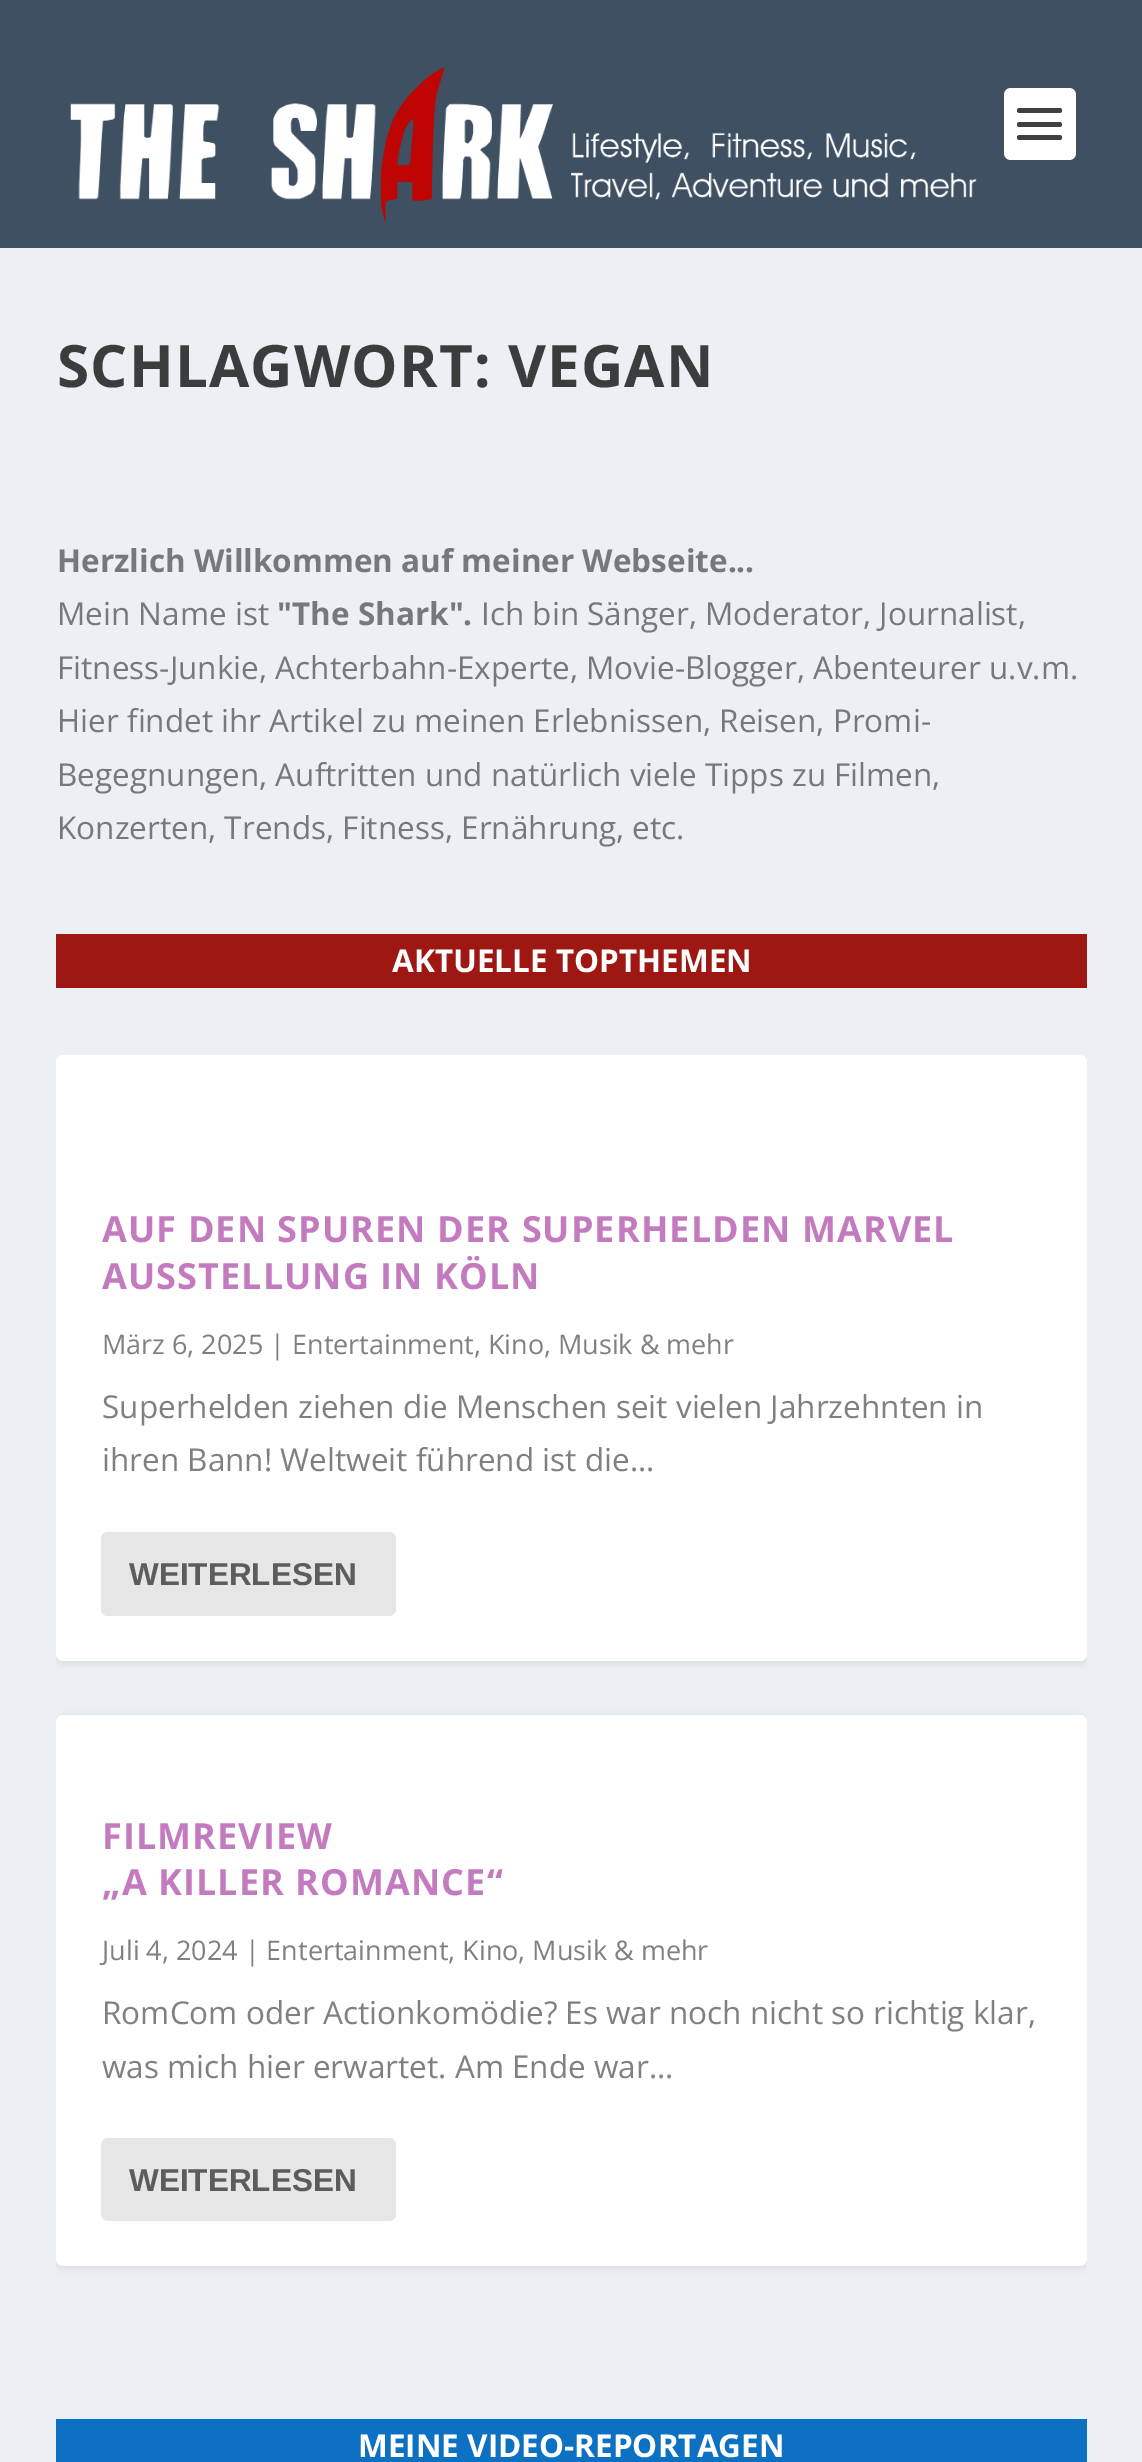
%!PS
<< /PageSize [1142 2462] /PageUsesTransparency true >> setpagedevice
/rgb { 3 { 255 div 3 1 roll } repeat setrgbcolor } def
/font { [ exch dup neg 0 0 3 -1 roll 0 0 ] selectfont } def
/text { moveto show } def
/alpha { dup .setfillconstantalpha .setstrokeconstantalpha } def
/roundrect { 5 dict begin { /r /h /w /y /x } { exch def } forall
  x r add y moveto x w add y 2 copy h add r arct x w add y h add x 1 index r arct
  x y h add x y r arct x y 2 copy exch w add exch r arct closepath end } def
/shadow { 12 dict begin { /a /b /q /h /w /y /x } { exch def } forall gsave /was 0 def
  9 -2 -9 { dup b mul 4 div /e exch def 1 sub .425 mul 2.718 exch exp 1 add a .99 .min exch div /now exch def
    1 1 now sub 1 was sub div sub alpha /was now def
    w h .min e 2 mul add 0 gt { x e sub y e sub w e 2 mul add h e 2 mul add
      q e add b .6 mul add w h .min 2 div e add .min 0 .max roundrect fill } if } for grestore end } def
/picture { 5 dict begin { /h /w /y /x /name } { exch def } forall
  gsave x y translate w h scale
  w h 8 [w 0 0 h 0 0] name (r) file false 3 colorimage grestore end } def
0 .pushpdf14devicefilter
0 2462 translate 1 -1 scale
4 setmiterlimit
236 240 245 rgb
0 0 1142 2462 rectfill
62 80 98 rgb
0 0 1142 248 rectfill
(img_01.rgb) 70 67 907 156 picture
255 255 255 rgb
1004 88 72 72 7 roundrect fill
64 64 64 rgb
1017 108 45 5 2.5 roundrect fill
1017 122 45 5 2.5 roundrect fill
1017 135 45 5 2.5 roundrect fill
158 23 18 rgb
56 934 1031 54 rectfill
gsave
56 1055 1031 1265 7 roundrect clip newpath
0 0 0 rgb
56 1058 1031 605 7 3.5 0.1 shadow
grestore
255 255 255 rgb
56 1055 1031 606 7 roundrect fill
230 230 230 rgb
101 1532 295 84 7 roundrect fill
gsave
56 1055 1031 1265 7 roundrect clip newpath
0 0 0 rgb
56 1717 1031 551 7 3.5 0.1 shadow
grestore
255 255 255 rgb
56 1715 1031 551 7 roundrect fill
230 230 230 rgb
101 2138 295 83 7 roundrect fill
12 113 195 rgb
56 2419 1031 43 rectfill
/OpenSans-Bold 58.5 font
59 60 61 rgb
57 387 moveto 1.1 0 (SCHLAGWORT: VEGAN) ashow
/OpenSans-Bold 31.5 font
118 120 123 rgb
(Herzlich Willkommen auf meiner Webseite...) 57 572 text
/OpenSans-Regular 31.5 font
(Mein Name ist) 57 625 text
/OpenSans-Bold 31.5 font
("The Shark".) 277 625 text
/OpenSans-Regular 31.5 font
(Ich bin Sänger, Moderator, Journalist,) 481 625 text
(Fitness-Junkie, Achterbahn-Experte, Movie-Blogger, Abenteurer u.v.m.) 57 679 text
(Hier findet ihr Artikel zu meinen Erlebnissen, Reisen, Promi-) 57 732 text
(Begegnungen, Auftritten und natürlich viele Tipps zu Filmen,) 57 786 text
(Konzerten, Trends, Fitness, Ernährung, etc.) 57 839 text
/OpenSans-Bold 31.5 font
255 255 255 rgb
(AKTUELLE TOPTHEMEN) 392 972 text
/OpenSans-Bold 36 font
196 122 191 rgb
102 1242 moveto 1.1 0 (AUF DEN SPUREN DER SUPERHELDEN MARVEL) ashow
102 1289 moveto 1.1 0 (AUSSTELLUNG IN KÖLN) ashow
/OpenSans-Regular 27 font
128 128 128 rgb
(März 6, 2025 | Entertainment, Kino, Musik & mehr) 102 1354 text
/OpenSans-Regular 31.5 font
(Superhelden ziehen die Menschen seit vielen Jahrzehnten in) 102 1418 text
(ihren Bann! Weltweit führend ist die...) 102 1471 text
/LiberationSans-Bold 31.5 font
92 92 92 rgb
(WEITERLESEN) 129 1585 text
/OpenSans-Bold 36 font
196 122 191 rgb
102 1849 moveto 1.1 0 (FILMREVIEW) ashow
102 1895 moveto 1.1 0 („A KILLER ROMANCE“) ashow
/OpenSans-Regular 27 font
128 128 128 rgb
(Juli 4, 2024 | Entertainment, Kino, Musik & mehr) 102 1960 text
/OpenSans-Regular 31.5 font
(RomCom oder Actionkomödie? Es war noch nicht so richtig klar,) 102 2024 text
(was mich hier erwartet. Am Ende war...) 102 2078 text
/LiberationSans-Bold 31.5 font
92 92 92 rgb
(WEITERLESEN) 129 2191 text
/OpenSans-Bold 31.5 font
255 255 255 rgb
(MEINE VIDEO-REPORTAGEN) 358 2457 text
.poppdf14devicefilter showpage
